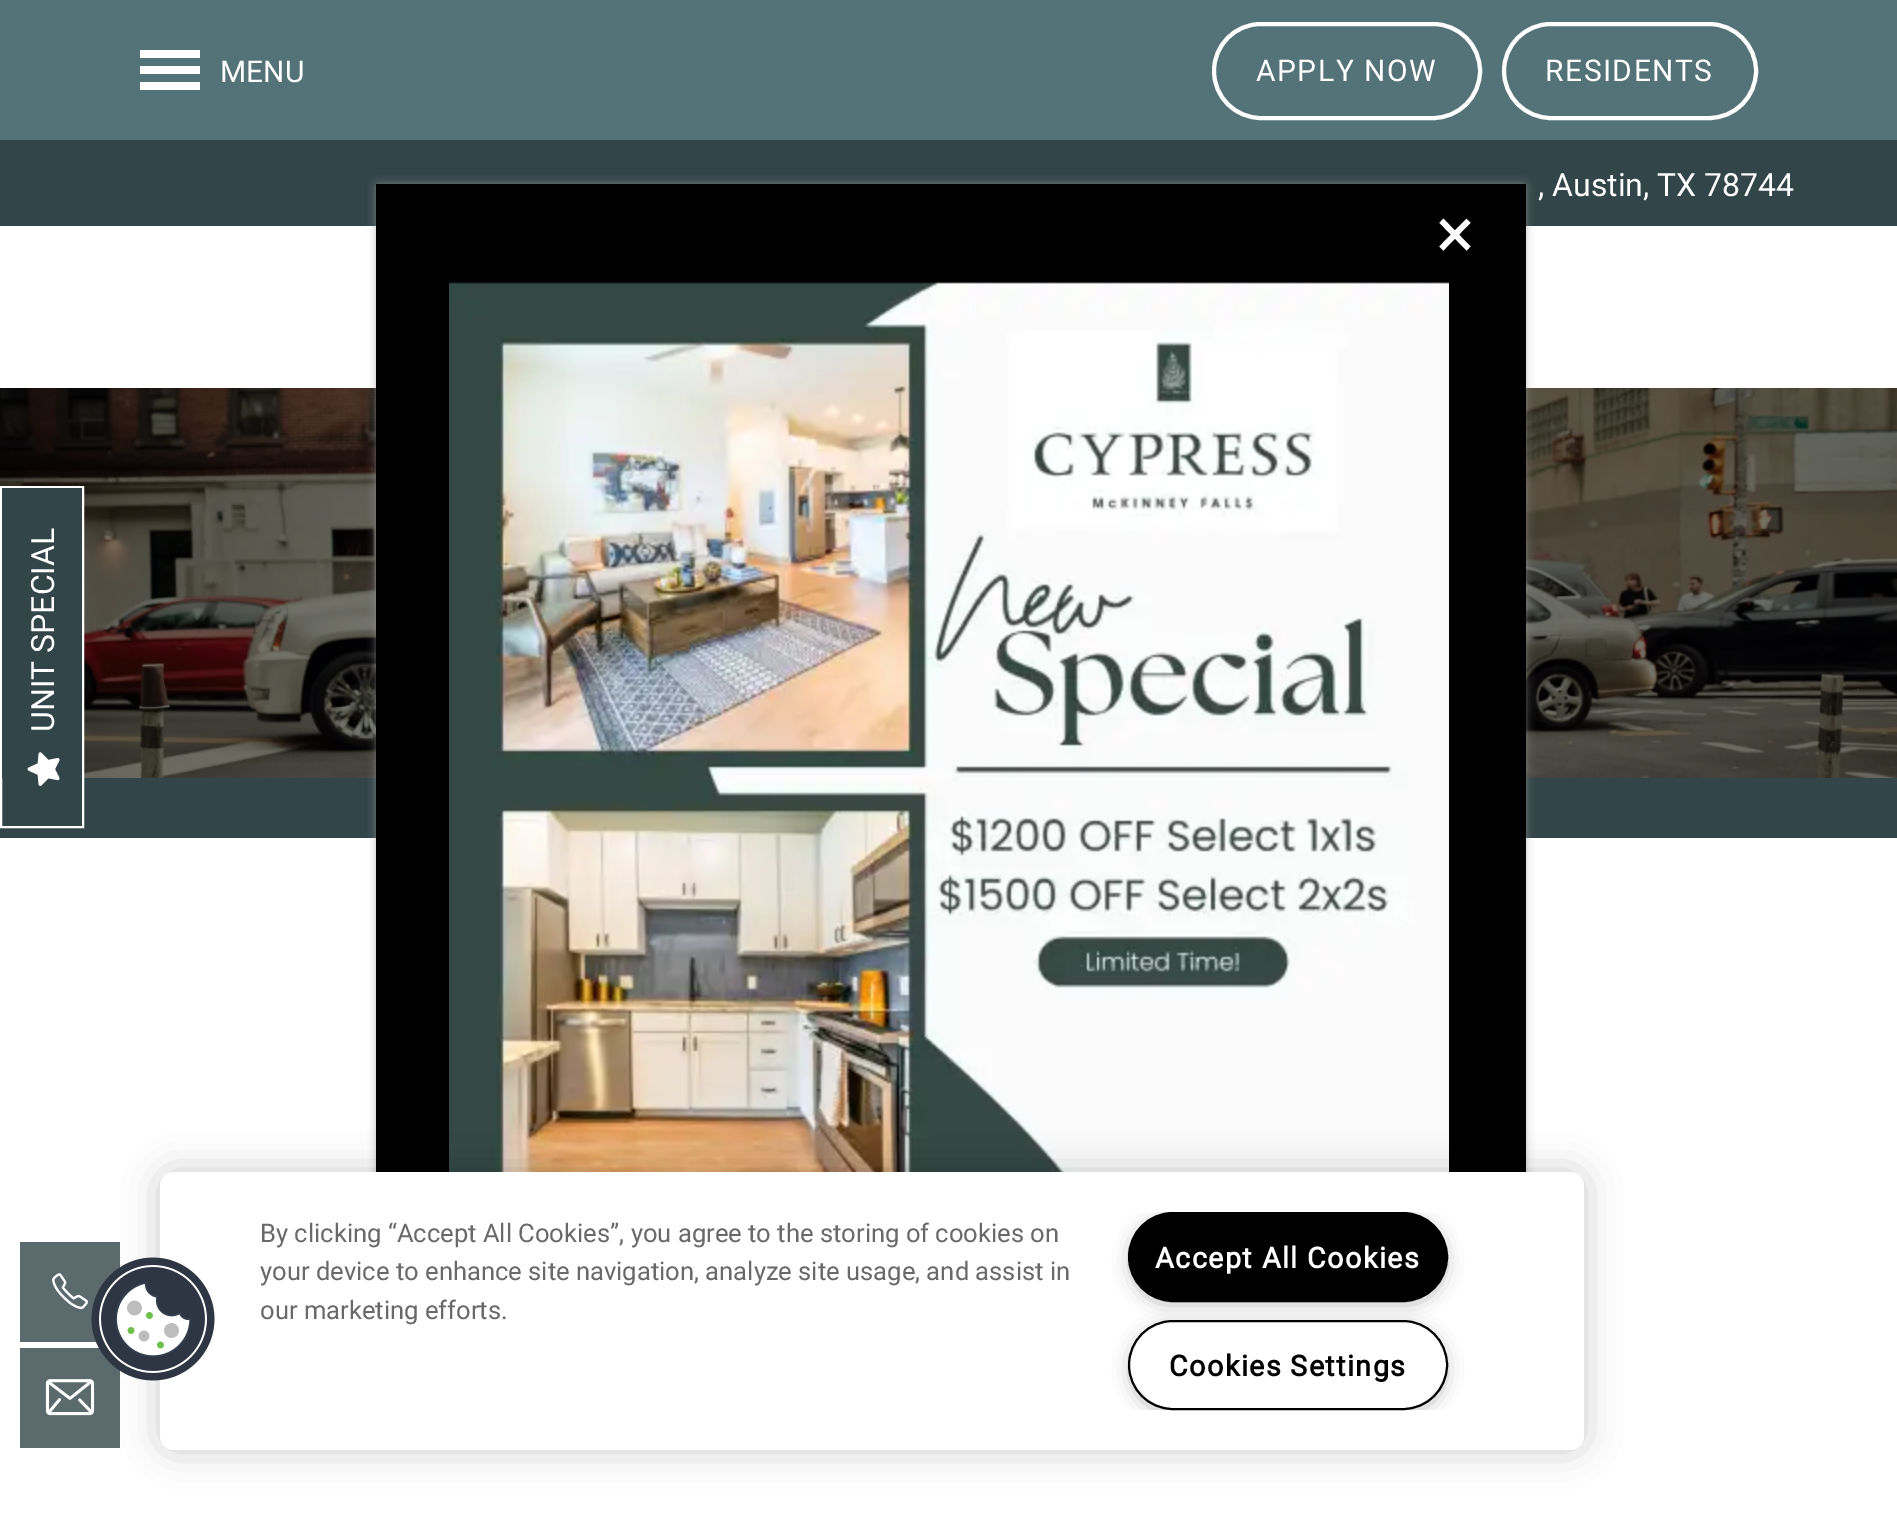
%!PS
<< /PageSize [1897 1513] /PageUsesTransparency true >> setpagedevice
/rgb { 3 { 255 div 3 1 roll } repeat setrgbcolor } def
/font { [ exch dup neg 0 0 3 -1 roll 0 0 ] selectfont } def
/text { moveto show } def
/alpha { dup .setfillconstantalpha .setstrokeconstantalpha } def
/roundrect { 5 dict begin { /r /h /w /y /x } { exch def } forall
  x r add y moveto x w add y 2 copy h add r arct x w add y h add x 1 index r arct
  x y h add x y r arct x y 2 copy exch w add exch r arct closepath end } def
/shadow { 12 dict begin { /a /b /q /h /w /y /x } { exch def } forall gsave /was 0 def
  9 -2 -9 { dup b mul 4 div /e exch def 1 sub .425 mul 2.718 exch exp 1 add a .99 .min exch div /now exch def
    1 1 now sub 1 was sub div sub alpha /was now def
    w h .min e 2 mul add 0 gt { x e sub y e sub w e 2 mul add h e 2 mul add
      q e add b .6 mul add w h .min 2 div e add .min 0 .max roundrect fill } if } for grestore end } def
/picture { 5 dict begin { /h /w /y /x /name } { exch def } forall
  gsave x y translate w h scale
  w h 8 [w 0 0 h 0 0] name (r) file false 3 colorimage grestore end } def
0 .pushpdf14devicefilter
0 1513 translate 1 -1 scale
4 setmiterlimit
84 115 120 rgb
0 0 1897 1513 rectfill
255 255 255 rgb
140 50 60 8 rectfill
140 66 60 8 rectfill
140 82 60 8 rectfill
4 setlinewidth
1214 24 266 94 47 roundrect stroke
1504 24 252 94 47 roundrect stroke
0 226 1897 162 rectfill
(img_05.rgb) 0 388 1897 390 picture
50 69 72 rgb
0 778 1897 60 rectfill
255 255 255 rgb
0 838 1897 675 rectfill
50 69 72 rgb
0 140 1897 86 rectfill
153 153 153 rgb
378 186 1146 1146 0 5 1 shadow
0 0 0 rgb
376 184 1150 988 rectfill
(img_01.rgb) 449 282 1000 890 picture
255 255 255 rgb
2 setlinewidth
1 827 moveto 0 -340 rlineto 82 0 rlineto 0 340 rlineto closepath stroke
50 69 72 rgb
2 488 80 290 rectfill
(img_02.rgb) 27 752 33 34 picture
91 106 109 rgb
20 1242 100 100 rectfill
(img_03.rgb) 52 1273 36 37 picture
20 1348 100 100 rectfill
(img_04.rgb) 45 1379 50 37 picture
0 0 0 rgb
160 1172 1424 278 14 18 0.2 shadow
255 255 255 rgb
160 1172 1424 278 14 roundrect fill
(img_06.rgb) 91 1257 124 124 picture
gsave
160 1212 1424 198 rectclip
153 153 153 rgb
1134 1222 308 78 39 10 1 shadow
grestore
0 0 0 rgb
1129 1213 318 88 44 roundrect gsave fill grestore
stroke
gsave
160 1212 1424 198 rectclip
153 153 153 rgb
1134 1330 308 78 39 10 1 shadow
grestore
255 255 255 rgb
1129 1321 318 88 44 roundrect gsave fill grestore
0 0 0 rgb
stroke
/Roboto-Regular 30 font
255 255 255 rgb
(MENU) 220 82 text
1256 81 moveto 1.5 0 (APPLY NOW) ashow
1545 81 moveto 1.5 0 (RESIDENTS) ashow
/Roboto-Regular 72 font
(×) 1436 258 text
/Roboto-Regular 32 font
gsave 54 732 translate -90 rotate 0 0 moveto (UNIT SPECIAL) show grestore
(, Austin, TX 78744) 1538 196 text
/Roboto-Regular 25.6 font
105 105 105 rgb
(By clicking “Accept All Cookies”, you agree to the storing of cookies on) 260 1242 text
(your device to enhance site navigation, analyze site usage, and assist in) 260 1280 text
(our marketing efforts.) 260 1319 text
/Roboto-Bold 28.75 font
255 255 255 rgb
1155 1268 moveto 1.4 0 (Accept All Cookies) ashow
0 0 0 rgb
1169 1376 moveto 1.4 0 (Cookies Settings) ashow
.poppdf14devicefilter showpage
